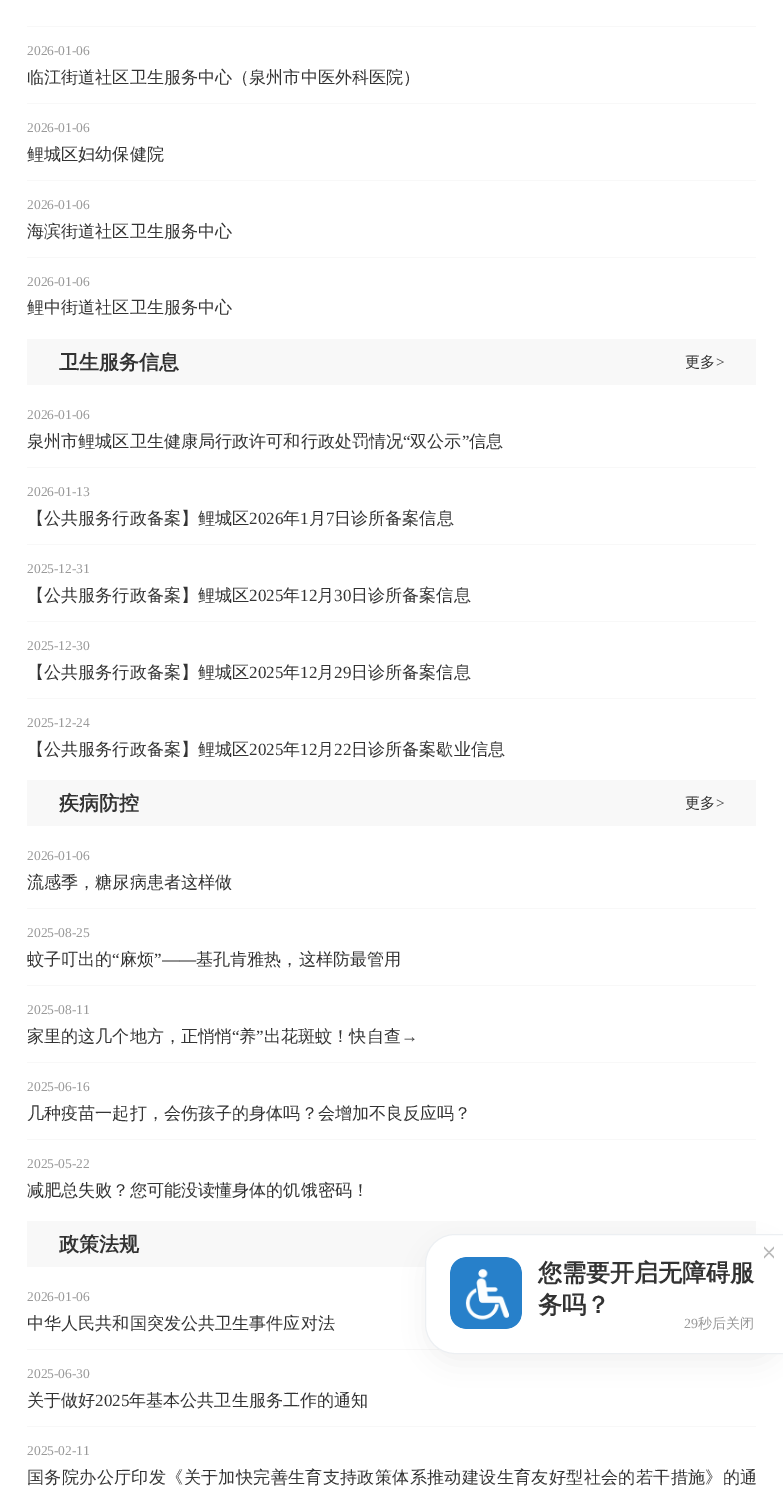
%!PS
<< /PageSize [783 1504] /PageUsesTransparency true >> setpagedevice
/rgb { 3 { 255 div 3 1 roll } repeat setrgbcolor } def
/font { [ exch dup neg 0 0 3 -1 roll 0 0 ] selectfont } def
/text { moveto show } def
/alpha { dup .setfillconstantalpha .setstrokeconstantalpha } def
/roundrect { 5 dict begin { /r /h /w /y /x } { exch def } forall
  x r add y moveto x w add y 2 copy h add r arct x w add y h add x 1 index r arct
  x y h add x y r arct x y 2 copy exch w add exch r arct closepath end } def
/shadow { 12 dict begin { /a /b /q /h /w /y /x } { exch def } forall gsave /was 0 def
  9 -2 -9 { dup b mul 4 div /e exch def 1 sub .425 mul 2.718 exch exp 1 add a .99 .min exch div /now exch def
    1 1 now sub 1 was sub div sub alpha /was now def
    w h .min e 2 mul add 0 gt { x e sub y e sub w e 2 mul add h e 2 mul add
      q e add b .6 mul add w h .min 2 div e add .min 0 .max roundrect fill } if } for grestore end } def
/picture { 5 dict begin { /h /w /y /x /name } { exch def } forall
  gsave x y translate w h scale
  w h 8 [w 0 0 h 0 0] name (r) file false 3 colorimage grestore end } def
0 .pushpdf14devicefilter
0 1504 translate 1 -1 scale
4 setmiterlimit
255 255 255 rgb
0 0 783 1504 rectfill
248 248 248 rgb
27 26 729 1 rectfill
27 103 729 1 rectfill
27 180 729 1 rectfill
27 257 729 1 rectfill
27 339 729 46 rectfill
27 467 729 1 rectfill
27 544 729 1 rectfill
27 621 729 1 rectfill
27 698 729 1 rectfill
27 780 729 46 rectfill
27 908 729 1 rectfill
27 985 729 1 rectfill
27 1062 729 1 rectfill
27 1139 729 1 rectfill
27 1221 729 46 rectfill
27 1349 413 1 rectfill
27 1426 729 1 rectfill
4 4 4 rgb
425 1244 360 120 30 13.5 0.05 shadow
255 255 255 rgb
455 1234.5 moveto 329.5 0 rlineto 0 119 rlineto -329.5 0 rlineto -16.5 0 -29.5 -13 -29.5 -29.5 rcurveto 0 -60 rlineto 0 -16.5 13 -29.5 29.5 -29.5 rcurveto closepath gsave fill grestore
236 239 242 rgb
stroke
(img_01.rgb) 764 1246 10 13 picture
(img_02.rgb) 450 1257 72 72 picture
/LiberationSerif-Regular 13.5 font
153 153 153 rgb
(2026-01-06) 27 55 text
/WenQuanYiZenHei-Medium 17.1 font
51 51 51 rgb
(临江街道社区卫生服务中心（泉州市中医外科医院）) 27 83 text
/LiberationSerif-Regular 13.5 font
153 153 153 rgb
(2026-01-06) 27 132 text
/WenQuanYiZenHei-Medium 17.1 font
51 51 51 rgb
(鲤城区妇幼保健院) 27 160 text
/LiberationSerif-Regular 13.5 font
153 153 153 rgb
(2026-01-06) 27 209 text
/WenQuanYiZenHei-Medium 17.1 font
51 51 51 rgb
(海滨街道社区卫生服务中心) 27 237 text
/LiberationSerif-Regular 13.5 font
153 153 153 rgb
(2026-01-06) 27 286 text
/WenQuanYiZenHei-Medium 17.1 font
51 51 51 rgb
(鲤中街道社区卫生服务中心) 27 313 text
/WenQuanYiZenHei-Bold 20 font
(卫生服务信息) 59 369 text
/WenQuanYiZenHei-Medium 15 font
(更多) 685 367 text
/LiberationSerif-Regular 15 font
(>) 716 367 text
/LiberationSerif-Regular 13.5 font
153 153 153 rgb
(2026-01-06) 27 419 text
/WenQuanYiZenHei-Medium 17.1 font
51 51 51 rgb
(泉州市鲤城区卫生健康局行政许可和行政处罚情况) 27 447 text
/LiberationSerif-Regular 17.1 font
(“) 403 447 text
/WenQuanYiZenHei-Medium 17.1 font
(双公示) 410 447 text
/LiberationSerif-Regular 17.1 font
(”) 462 447 text
/WenQuanYiZenHei-Medium 17.1 font
(信息) 469 447 text
/LiberationSerif-Regular 13.5 font
153 153 153 rgb
(2026-01-13) 27 496 text
/WenQuanYiZenHei-Medium 17.1 font
51 51 51 rgb
(【公共服务行政备案】鲤城区) 27 524 text
/LiberationSerif-Regular 17.1 font
(2026) 249 524 text
/WenQuanYiZenHei-Medium 17.1 font
(年) 283 524 text
/LiberationSerif-Regular 17.1 font
(1) 300 524 text
/WenQuanYiZenHei-Medium 17.1 font
(月) 309 524 text
/LiberationSerif-Regular 17.1 font
(7) 326 524 text
/WenQuanYiZenHei-Medium 17.1 font
(日诊所备案信息) 334 524 text
/LiberationSerif-Regular 13.5 font
153 153 153 rgb
(2025-12-31) 27 573 text
/WenQuanYiZenHei-Medium 17.1 font
51 51 51 rgb
(【公共服务行政备案】鲤城区) 27 601 text
/LiberationSerif-Regular 17.1 font
(2025) 249 601 text
/WenQuanYiZenHei-Medium 17.1 font
(年) 283 601 text
/LiberationSerif-Regular 17.1 font
(12) 300 601 text
/WenQuanYiZenHei-Medium 17.1 font
(月) 317 601 text
/LiberationSerif-Regular 17.1 font
(30) 334 601 text
/WenQuanYiZenHei-Medium 17.1 font
(日诊所备案信息) 351 601 text
/LiberationSerif-Regular 13.5 font
153 153 153 rgb
(2025-12-30) 27 650 text
/WenQuanYiZenHei-Medium 17.1 font
51 51 51 rgb
(【公共服务行政备案】鲤城区) 27 678 text
/LiberationSerif-Regular 17.1 font
(2025) 249 678 text
/WenQuanYiZenHei-Medium 17.1 font
(年) 283 678 text
/LiberationSerif-Regular 17.1 font
(12) 300 678 text
/WenQuanYiZenHei-Medium 17.1 font
(月) 317 678 text
/LiberationSerif-Regular 17.1 font
(29) 334 678 text
/WenQuanYiZenHei-Medium 17.1 font
(日诊所备案信息) 351 678 text
/LiberationSerif-Regular 13.5 font
153 153 153 rgb
(2025-12-24) 27 727 text
/WenQuanYiZenHei-Medium 17.1 font
51 51 51 rgb
(【公共服务行政备案】鲤城区) 27 755 text
/LiberationSerif-Regular 17.1 font
(2025) 249 755 text
/WenQuanYiZenHei-Medium 17.1 font
(年) 283 755 text
/LiberationSerif-Regular 17.1 font
(12) 300 755 text
/WenQuanYiZenHei-Medium 17.1 font
(月) 317 755 text
/LiberationSerif-Regular 17.1 font
(22) 334 755 text
/WenQuanYiZenHei-Medium 17.1 font
(日诊所备案歇业信息) 351 755 text
/WenQuanYiZenHei-Bold 20 font
(疾病防控) 59 810 text
/WenQuanYiZenHei-Medium 15 font
(更多) 685 808 text
/LiberationSerif-Regular 15 font
(>) 716 808 text
/LiberationSerif-Regular 13.5 font
153 153 153 rgb
(2026-01-06) 27 860 text
/WenQuanYiZenHei-Medium 17.1 font
51 51 51 rgb
(流感季，糖尿病患者这样做) 27 888 text
/LiberationSerif-Regular 13.5 font
153 153 153 rgb
(2025-08-25) 27 937 text
/WenQuanYiZenHei-Medium 17.1 font
51 51 51 rgb
(蚊子叮出的) 27 965 text
/LiberationSerif-Regular 17.1 font
(“) 112 965 text
/WenQuanYiZenHei-Medium 17.1 font
(麻烦) 120 965 text
/LiberationSerif-Regular 17.1 font
(”——) 154 965 text
/WenQuanYiZenHei-Medium 17.1 font
(基孔肯雅热，这样防最管用) 196 965 text
/LiberationSerif-Regular 13.5 font
153 153 153 rgb
(2025-08-11) 27 1014 text
/WenQuanYiZenHei-Medium 17.1 font
51 51 51 rgb
(家里的这几个地方，正悄悄) 27 1042 text
/LiberationSerif-Regular 17.1 font
(“) 232 1042 text
/WenQuanYiZenHei-Medium 17.1 font
(养) 239 1042 text
/LiberationSerif-Regular 17.1 font
(”) 256 1042 text
/WenQuanYiZenHei-Medium 17.1 font
(出花斑蚊！快自查) 264 1042 text
/LiberationSerif-Regular 17.1 font
(→) 401 1042 text
/LiberationSerif-Regular 13.5 font
153 153 153 rgb
(2025-06-16) 27 1091 text
/WenQuanYiZenHei-Medium 17.1 font
51 51 51 rgb
(几种疫苗一起打，会伤孩子的身体吗？会增加不良反应吗？) 27 1119 text
/LiberationSerif-Regular 13.5 font
153 153 153 rgb
(2025-05-22) 27 1168 text
/WenQuanYiZenHei-Medium 17.1 font
51 51 51 rgb
(减肥总失败？您可能没读懂身体的饥饿密码！) 27 1196 text
/WenQuanYiZenHei-Bold 20 font
(政策法规) 59 1251 text
/LiberationSerif-Regular 13.5 font
153 153 153 rgb
(2026-01-06) 27 1301 text
/WenQuanYiZenHei-Medium 17.1 font
51 51 51 rgb
(中华人民共和国突发公共卫生事件应对法) 27 1329 text
/LiberationSerif-Regular 13.5 font
153 153 153 rgb
(2025-06-30) 27 1378 text
/WenQuanYiZenHei-Medium 17.1 font
51 51 51 rgb
(关于做好) 27 1406 text
/LiberationSerif-Regular 17.1 font
(2025) 95 1406 text
/WenQuanYiZenHei-Medium 17.1 font
(年基本公共卫生服务工作的通知) 129 1406 text
/LiberationSerif-Regular 13.5 font
153 153 153 rgb
(2025-02-11) 27 1455 text
/WenQuanYiZenHei-Medium 17.1 font
51 51 51 rgb
27 1483 moveto 0.3 0 (国务院办公厅印发《关于加快完善生育支持政策体系推动建设生育友好型社会的若干措施》的通) ashow
/WenQuanYiZenHei-Bold 24 font
(您需要开启无障碍服) 538 1281 text
(务吗？) 538 1313 text
/LiberationSerif-Regular 14 font
153 153 153 rgb
(29) 684 1328 text
/WenQuanYiZenHei-Medium 14 font
(秒后关闭) 698 1328 text
.poppdf14devicefilter showpage
